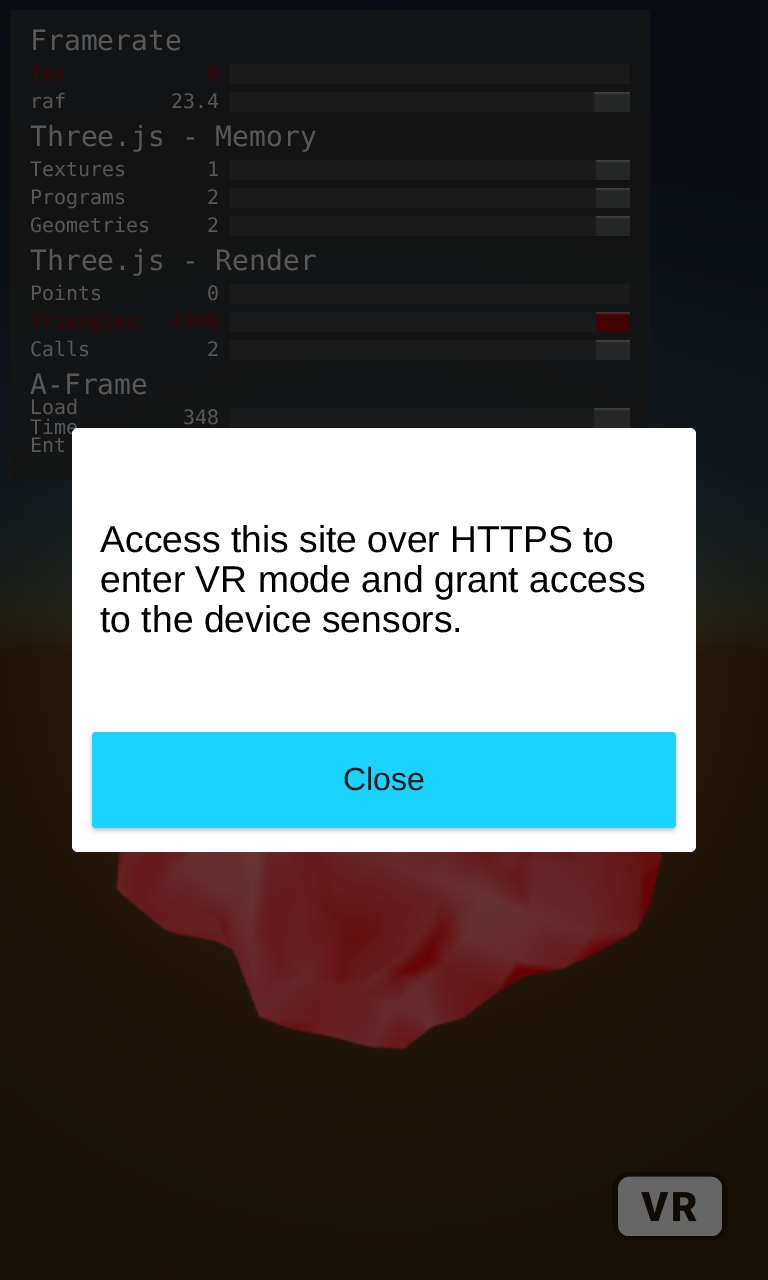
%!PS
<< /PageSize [768 1280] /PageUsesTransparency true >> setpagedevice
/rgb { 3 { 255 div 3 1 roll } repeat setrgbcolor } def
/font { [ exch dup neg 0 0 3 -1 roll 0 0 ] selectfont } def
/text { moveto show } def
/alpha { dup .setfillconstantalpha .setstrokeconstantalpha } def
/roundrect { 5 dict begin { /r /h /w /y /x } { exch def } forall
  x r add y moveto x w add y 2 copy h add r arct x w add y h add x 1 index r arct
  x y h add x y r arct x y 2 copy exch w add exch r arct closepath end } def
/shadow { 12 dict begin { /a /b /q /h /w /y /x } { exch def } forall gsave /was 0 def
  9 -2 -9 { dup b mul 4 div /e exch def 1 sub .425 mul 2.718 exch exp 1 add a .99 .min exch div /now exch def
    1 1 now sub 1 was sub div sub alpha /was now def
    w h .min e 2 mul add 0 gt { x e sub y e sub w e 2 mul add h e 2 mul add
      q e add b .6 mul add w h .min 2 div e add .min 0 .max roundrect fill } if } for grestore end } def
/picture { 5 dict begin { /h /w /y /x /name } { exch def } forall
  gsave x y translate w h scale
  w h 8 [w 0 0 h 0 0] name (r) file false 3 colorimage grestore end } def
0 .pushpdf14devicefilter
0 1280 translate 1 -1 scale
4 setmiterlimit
255 255 255 rgb
0 0 768 1280 rectfill
(img_07.rgb) 0 0 768 1280 picture
0.85 alpha
20 20 20 rgb
10 10 640 470 rectfill
1 alpha
26 26 26 rgb
230 64 400 20 rectfill
(img_01.rgb) 230 92 400 20 picture
(img_02.rgb) 230 160 400 20 picture
(img_02.rgb) 230 188 400 20 picture
(img_03.rgb) 230 216 400 20 picture
230 284 400 20 rectfill
(img_04.rgb) 230 312 400 20 picture
(img_05.rgb) 230 340 400 20 picture
(img_06.rgb) 230 408 400 20 picture
0.35 alpha
0 0 0 rgb
612 1172 116 68 16 roundrect fill
1 alpha
(img_08.rgb) 618 1176 104 60 picture
/DejaVuSansMono-Regular 28 font
88 88 89 rgb
(Framerate) 30 50 text
/DejaVuSansMono-Regular 20 font
64 2 3 rgb
(fps) 30 80 text
(0) 207 80 text
88 88 89 rgb
(raf) 30 108 text
(23.4) 171 108 text
/DejaVuSansMono-Regular 28 font
(Three.js - Memory) 30 146 text
/DejaVuSansMono-Regular 20 font
(Textures) 30 176 text
(1) 207 176 text
(Programs) 30 204 text
(2) 207 204 text
(Geometries) 30 232 text
(2) 207 232 text
/DejaVuSansMono-Regular 28 font
(Three.js - Render) 30 270 text
/DejaVuSansMono-Regular 20 font
(Points) 30 300 text
(0) 207 300 text
64 2 3 rgb
(Triangles) 30 328 text
(2448) 171 328 text
88 88 89 rgb
(Calls) 30 356 text
(2) 207 356 text
/DejaVuSansMono-Regular 28 font
(A-Frame) 30 394 text
/DejaVuSansMono-Regular 20 font
(Load) 30 414 text
(Time) 30 434 text
(348) 183 424 text
(Ent) 30 452 text
255 255 255 rgb
72 428 624 424 6 roundrect fill
/LiberationSans-Regular 37.3 font
0 0 0 rgb
(Access this site over HTTPS to) 100 552 text
(enter VR mode and grant access) 100 592 text
(to the device sensors.) 100 632 text
26 26 26 rgb
92 734 584 96 4 2 0.2 shadow
92 734 584 96 4 3 0.1 shadow
26 211 255 rgb
92 732 584 96 4 roundrect fill
/LiberationSans-Regular 32 font
26 26 26 rgb
(Close) 343 790 text
.poppdf14devicefilter showpage
